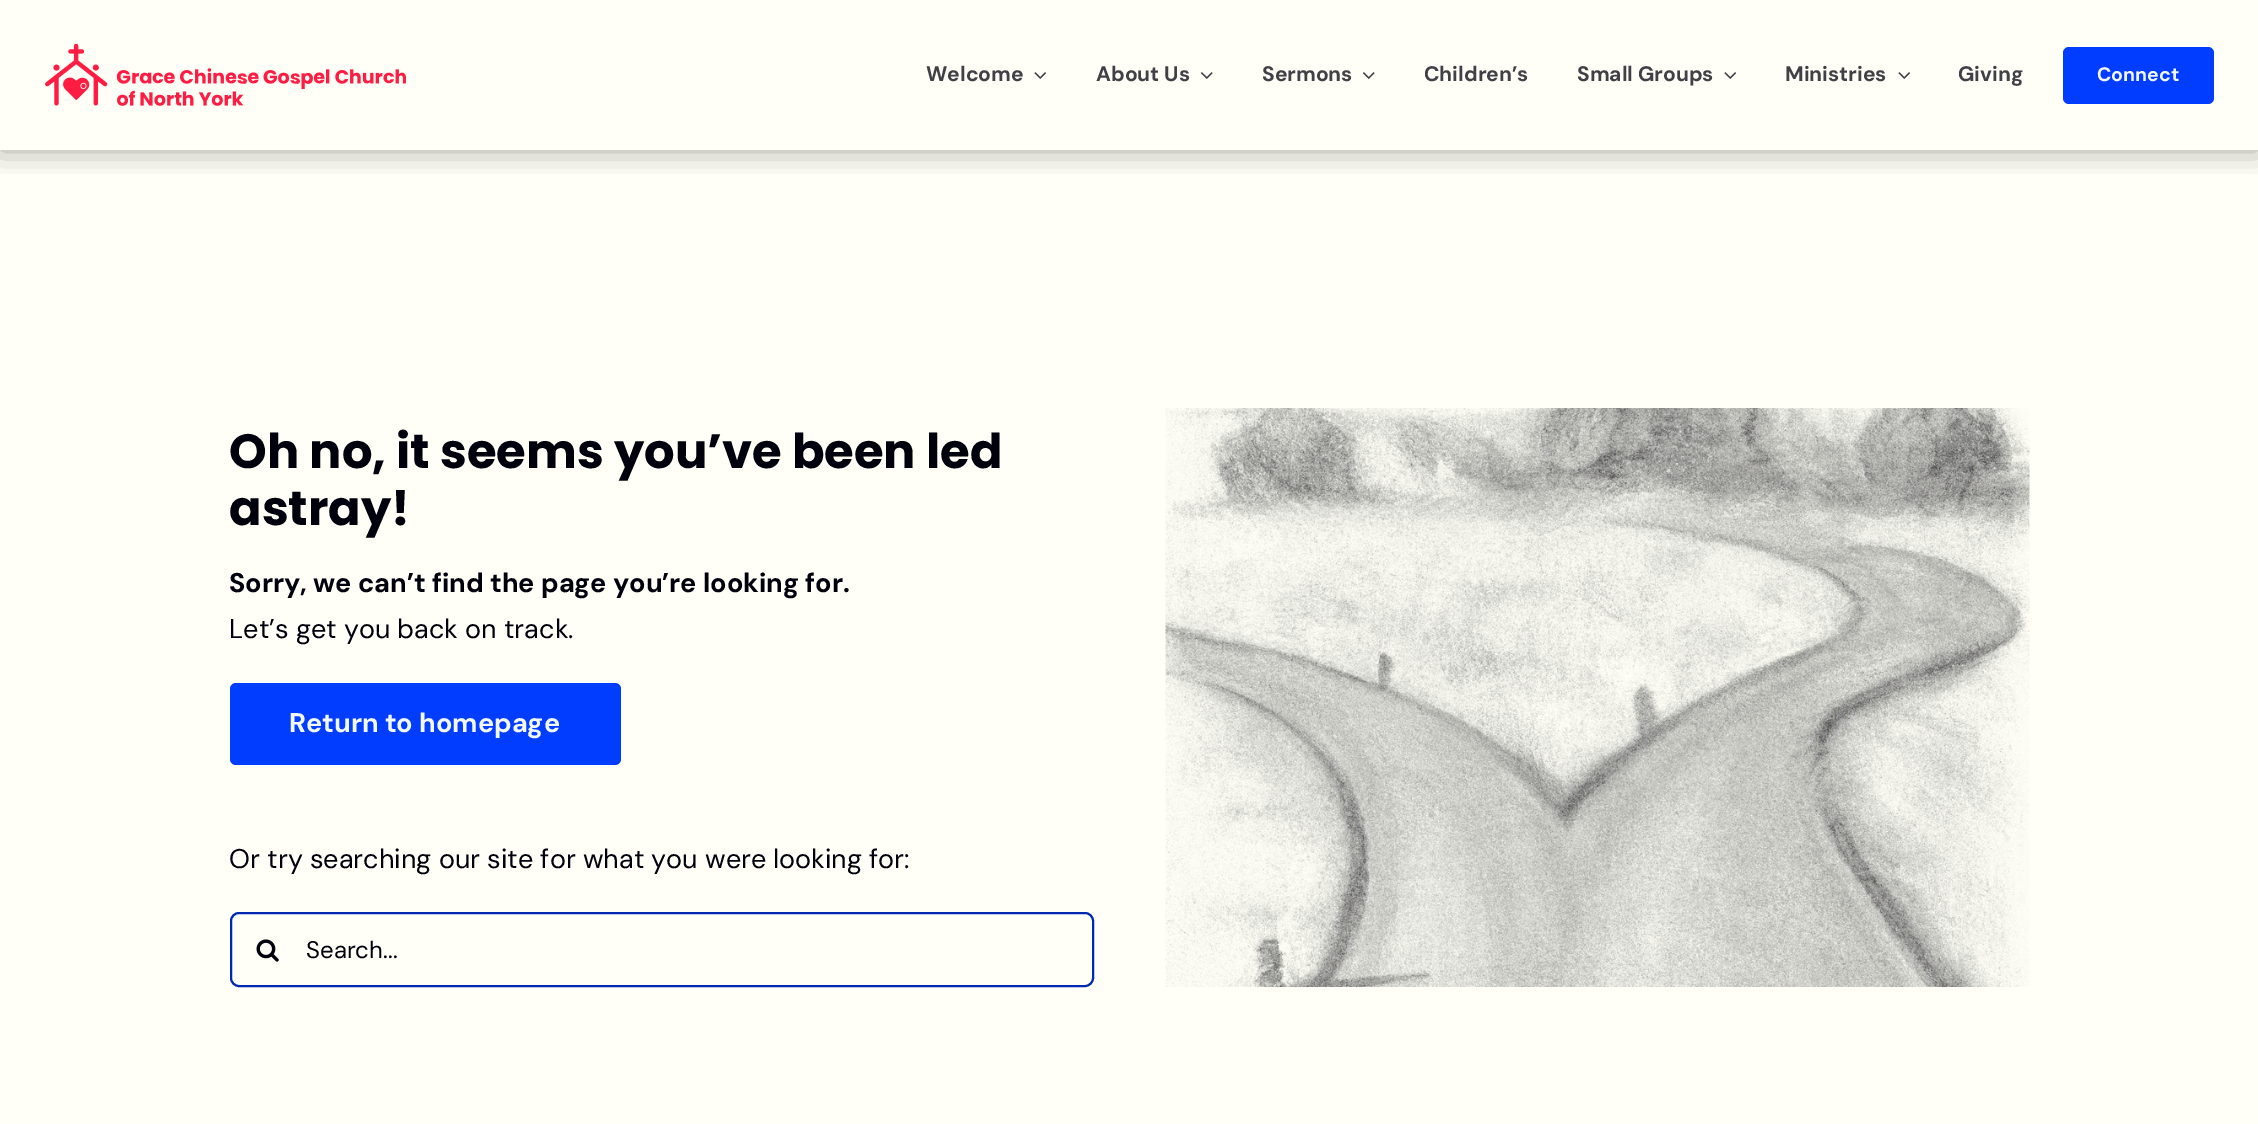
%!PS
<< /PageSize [2258 1124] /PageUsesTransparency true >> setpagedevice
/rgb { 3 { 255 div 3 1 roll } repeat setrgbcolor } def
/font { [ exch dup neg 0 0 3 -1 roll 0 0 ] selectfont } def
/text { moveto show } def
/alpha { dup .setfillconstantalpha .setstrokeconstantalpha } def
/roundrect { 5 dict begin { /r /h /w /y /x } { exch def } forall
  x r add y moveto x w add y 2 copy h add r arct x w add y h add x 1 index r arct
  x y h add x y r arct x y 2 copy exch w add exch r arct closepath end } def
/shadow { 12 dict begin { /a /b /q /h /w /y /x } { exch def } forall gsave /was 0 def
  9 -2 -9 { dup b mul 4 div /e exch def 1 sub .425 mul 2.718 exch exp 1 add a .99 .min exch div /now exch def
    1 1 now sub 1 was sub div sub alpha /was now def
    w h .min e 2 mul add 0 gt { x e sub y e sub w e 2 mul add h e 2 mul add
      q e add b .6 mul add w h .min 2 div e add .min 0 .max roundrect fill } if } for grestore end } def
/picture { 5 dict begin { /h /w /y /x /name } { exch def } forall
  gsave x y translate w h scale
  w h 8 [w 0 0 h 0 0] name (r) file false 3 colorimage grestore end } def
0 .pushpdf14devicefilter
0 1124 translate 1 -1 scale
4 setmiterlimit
255 255 248 rgb
0 0 2258 1124 rectfill
gsave
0 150 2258 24 rectclip
0 0 0 rgb
0 0 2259 150 0 15 0.35 shadow
grestore
(img_01.rgb) 45 44 361 62 picture
(img_02.rgb) 1034 72 12 7 picture
(img_03.rgb) 1201 72 12 7 picture
(img_03.rgb) 1363 72 12 7 picture
(img_02.rgb) 1724 72 12 7 picture
(img_02.rgb) 1898 72 12 7 picture
0 61 255 rgb
2063 47 151 57 6 roundrect fill
230 683 391 82 6 roundrect fill
0 41 178 rgb
2 setlinewidth
231 913 862 73 8 roundrect stroke
(img_04.rgb) 256 939 23 23 picture
(img_05.rgb) 1165 408 865 579 picture
/DMSans-Bold 21 font
64 64 70 rgb
(Welcome) 926 81 text
(About Us) 1096 81 text
(Sermons) 1262 81 text
(Children’s) 1424 81 text
(Small Groups) 1577 81 text
(Ministries) 1785 81 text
(Giving) 1958 81 text
/DMSans-Bold 19.5 font
243 247 254 rgb
(Connect) 2097 81 text
/Poppins-Bold 48 font
0 0 12 rgb
(Oh no, it seems you’ve been led) 229 468 text
(astray!) 229 525 text
/DMSans-Bold 27 font
(Sorry, we can’t find the page you’re looking for.) 229 592 text
/DMSans-Regular 27 font
(Let’s get you back on track.) 229 638 text
/DMSans-Bold 27 font
243 247 254 rgb
(Return to homepage) 289 732 text
/DMSans-Regular 27 font
0 0 12 rgb
(Or try searching our site for what you were looking for:) 229 868 text
/DMSans-Regular 24 font
(Search...) 306 958 text
.poppdf14devicefilter showpage
